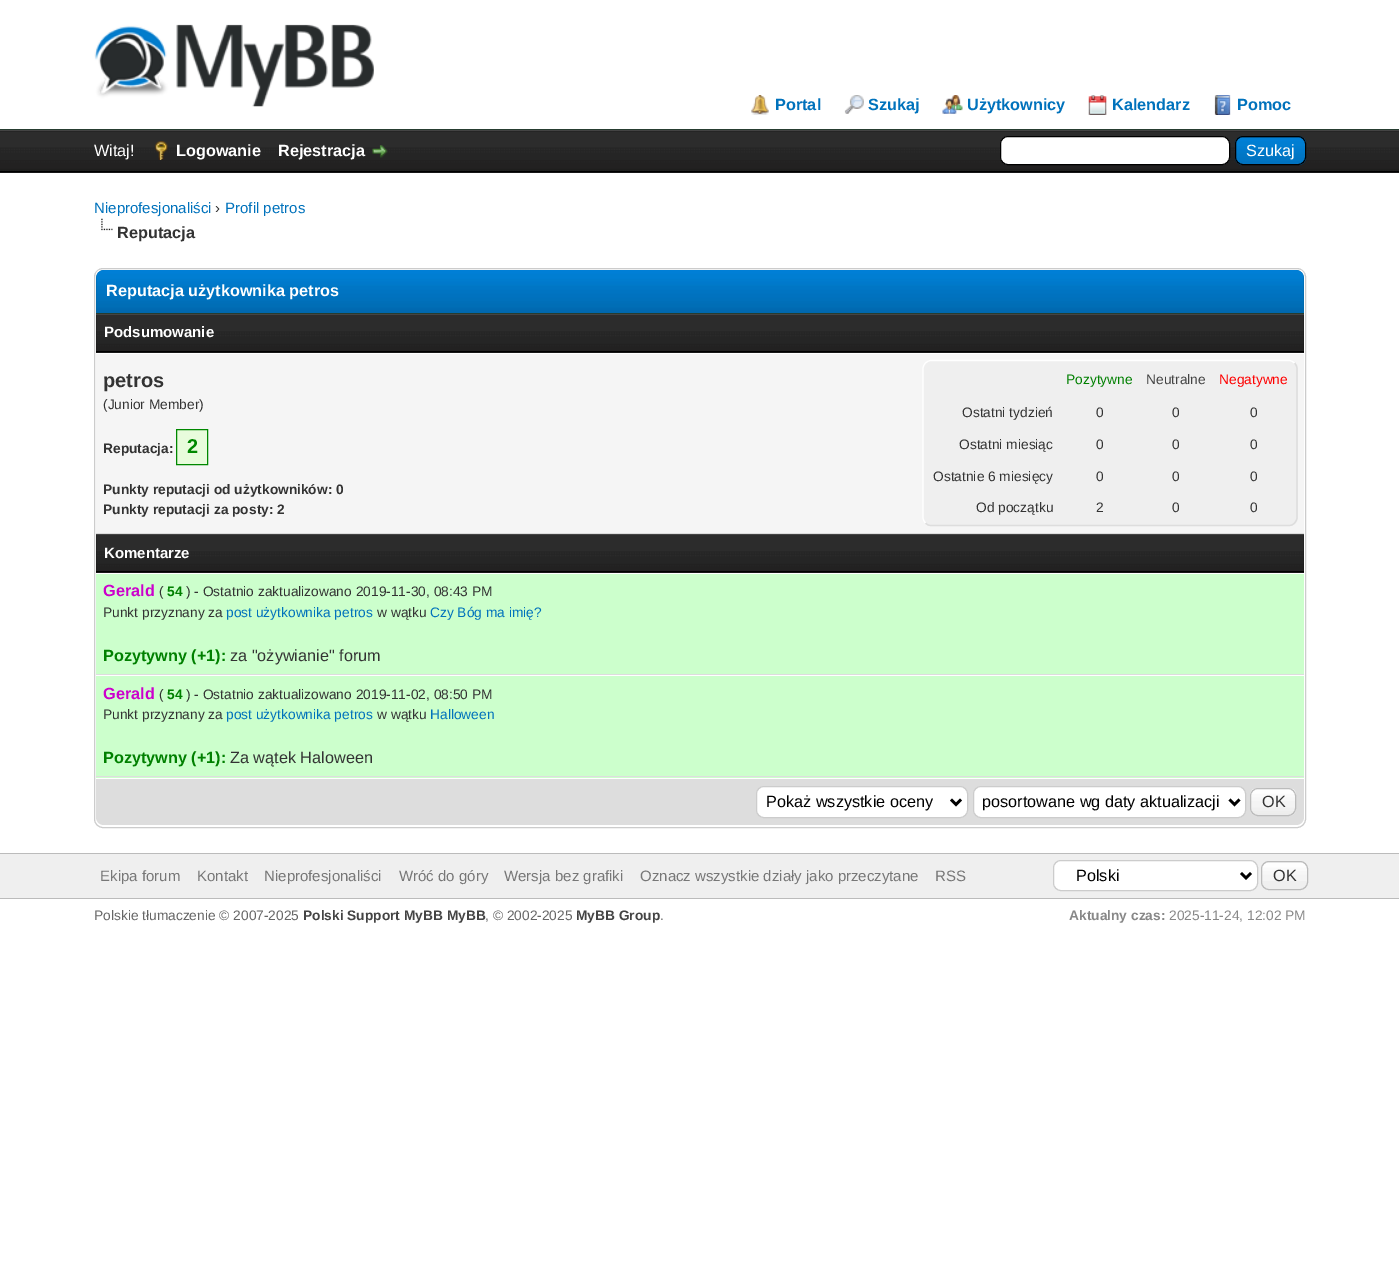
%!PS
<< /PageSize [1399 1275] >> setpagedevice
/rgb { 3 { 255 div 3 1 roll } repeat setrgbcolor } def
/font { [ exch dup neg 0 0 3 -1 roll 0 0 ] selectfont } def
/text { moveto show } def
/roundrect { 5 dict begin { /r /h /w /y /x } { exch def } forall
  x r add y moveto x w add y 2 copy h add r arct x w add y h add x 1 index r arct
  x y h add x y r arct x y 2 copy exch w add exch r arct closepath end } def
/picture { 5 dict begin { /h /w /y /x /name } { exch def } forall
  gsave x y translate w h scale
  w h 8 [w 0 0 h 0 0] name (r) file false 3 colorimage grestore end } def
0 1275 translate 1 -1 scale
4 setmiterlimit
255 255 255 rgb
0 0 1399 1275 rectfill
38 60 48 rgb
0 129 1399 1 rectfill
(img_01.rgb) 94 24 280 83 picture
(img_02.rgb) 751 95 18 20 picture
(img_03.rgb) 844 95 20 19 picture
(img_04.rgb) 942 95 21 19 picture
(img_05.rgb) 1088 95 19 20 picture
(img_06.rgb) 1214 95 17 20 picture
15 15 15 rgb
0 131 1399 42 rectfill
(img_07.rgb) 0 131 1399 42 picture
68 68 68 rgb
0 130 1399 1 rectfill
0 0 0 rgb
0 171 1399 1 rectfill
(img_08.rgb) 155 141 13 19 picture
(img_09.rgb) 372 145 16 13 picture
255 255 255 rgb
1000.5 136.5 229 28 7.5 roundrect gsave fill grestore
0 0 0 rgb
stroke
0 102 162 rgb
1235 136 71 29 8 roundrect fill
(img_10.rgb) 1235 137 72 28 picture
0 0 0 rgb
1235.5 136.5 70 28 7.5 roundrect stroke
(img_11.rgb) 101 218 12 13 picture
204 204 204 rgb
94.5 268.5 1211 559 8.5 roundrect stroke
0 102 162 rgb
104 270 moveto 1192 0 rlineto 4.5 0 8 3.5 8 8 rcurveto 0 36 rlineto -1208 0 rlineto 0 -36 rlineto 0 -4.5 3.5 -8 8 -8 rcurveto closepath fill
(img_12.rgb) 96 270 1208 43 picture
38 60 48 rgb
96 313 1208 1 rectfill
15 15 15 rgb
96 315 1208 38 rectfill
(img_13.rgb) 96 315 1208 38 picture
68 68 68 rgb
96 314 1208 1 rectfill
0 0 0 rgb
96 351 1208 1 rectfill
245 245 245 rgb
96 354 1208 179 rectfill
221 221 221 rgb
96 533 1208 1 rectfill
232 252 220 rgb
176.5 429.5 moveto 31 0 rlineto 0 35 rlineto -31 0 rlineto closepath gsave fill grestore
0 136 0 rgb
stroke
239 239 239 rgb
923 360 375 166 9 roundrect fill
221 221 221 rgb
1.2 setlinewidth
1294.5 363 moveto 1.5 1.5 2.5 3.5 2.5 6 rcurveto 0 148.5 rlineto 0 2 -1 4 -2.5 5.5 rcurveto -1.5 2 -3.5 2.5 -5.5 2.5 rcurveto -358 0 rlineto -2 0 -4 -0.5 -5.5 -2.5 rcurveto stroke
255 255 255 rgb
925.5 523 moveto -1.5 -1.5 -2.5 -3.5 -2.5 -5.5 rcurveto 0 -148.5 rlineto 0 -2.5 1 -4.5 2.5 -6 rcurveto 1.5 -1.5 3.5 -2.5 5.5 -2.5 rcurveto 358 0 rlineto 2 0 4 1 5.5 2.5 rcurveto stroke
15 15 15 rgb
96 535 1208 38 rectfill
(img_13.rgb) 96 535 1208 38 picture
68 68 68 rgb
96 534 1208 1 rectfill
0 0 0 rgb
96 571 1208 1 rectfill
204 255 204 rgb
96 574 1208 100 rectfill
221 221 221 rgb
96 674 1208 1 rectfill
204 255 204 rgb
96 676 1208 102 rectfill
221 221 221 rgb
96 776 1208 1 rectfill
96 778 moveto 1208 0 rlineto 0 39 rlineto 0 4.5 -3.5 8 -8 8 rcurveto -1192 0 rlineto -4.5 0 -8 -3.5 -8 -8 rcurveto closepath fill
255 255 255 rgb
96 778 1208 1 rectfill
756.5 786.5 211 31 7.5 roundrect gsave fill grestore
204 204 204 rgb
1 setlinewidth
stroke
0 0 0 rgb
2.5 setlinewidth
951 799.5 moveto 5 5 rlineto 5 -5 rlineto stroke
255 255 255 rgb
973.5 786.5 272 31 7.5 roundrect gsave fill grestore
204 204 204 rgb
1 setlinewidth
stroke
0 0 0 rgb
2.5 setlinewidth
1229.5 799.5 moveto 5 5 rlineto 5 -5 rlineto stroke
(img_14.rgb) 1250 788 46 28 picture
187 187 187 rgb
1 setlinewidth
1250.5 788.5 45 27 7.5 roundrect stroke
239 239 239 rgb
0 854 1399 44 rectfill
187 187 187 rgb
0 853 1399 1 rectfill
0 898 1399 1 rectfill
255 255 255 rgb
1053.5 860.5 204 30 7.5 roundrect gsave fill grestore
204 204 204 rgb
stroke
0 0 0 rgb
2.5 setlinewidth
1241 873 moveto 5 5 rlineto 5 -5 rlineto stroke
(img_15.rgb) 1261 862 46 19 picture
187 187 187 rgb
1 setlinewidth
1261.5 861.5 46 28 7.5 roundrect stroke
/LiberationSans-Bold 16.25 font
0 114 188 rgb
(Portal) 775 110 text
(Szukaj) 868 110 text
(Użytkownicy) 967 110 text
(Kalendarz) 1112 110 text
(Pomoc) 1237 110 text
/LiberationSans-Regular 16.25 font
255 255 255 rgb
(Witaj!) 94 156 text
/LiberationSans-Bold 16.25 font
(Logowanie) 176 156 text
(Rejestracja) 278 156 text
/LiberationSans-Regular 16.25 font
(Szukaj) 1246 156 text
/LiberationSans-Regular 15 font
0 114 188 rgb
(Nieprofesjonaliści) 94 213 text
51 51 51 rgb
(›) 215 213 text
0 114 188 rgb
(Profil petros) 225 213 text
/LiberationSans-Bold 16.25 font
51 51 51 rgb
(Reputacja) 117 238 text
255 255 255 rgb
(Reputacja użytkownika petros) 106 296 text
/LiberationSans-Bold 15 font
(Podsumowanie) 104 337 text
/LiberationSans-Bold 20 font
51 51 51 rgb
(petros) 103 387 text
/LiberationSans-Regular 13.75 font
(\(Junior Member\)) 103 409 text
/LiberationSans-Bold 13.75 font
(Reputacja:) 103 453 text
/LiberationSans-Bold 20 font
0 136 0 rgb
(2) 187 453 text
/LiberationSans-Bold 13.75 font
51 51 51 rgb
(Punkty reputacji od użytkowników: 0) 103 494 text
(Punkty reputacji za posty: 2) 103 514 text
/LiberationSans-Regular 13.75 font
0 128 0 rgb
(Pozytywne) 1066 384 text
68 68 68 rgb
(Neutralne) 1146 384 text
255 0 0 rgb
(Negatywne) 1219 384 text
51 51 51 rgb
(Ostatni tydzień) 962 417 text
(0) 1096 417 text
(0) 1172 417 text
(0) 1250 417 text
(Ostatni miesiąc) 959 449 text
(0) 1096 449 text
(0) 1172 449 text
(0) 1250 449 text
(Ostatnie 6 miesięcy) 933 481 text
(0) 1096 481 text
(0) 1172 481 text
(0) 1250 481 text
(Od początku) 976 512 text
(2) 1096 512 text
(0) 1172 512 text
(0) 1250 512 text
/LiberationSans-Bold 15 font
255 255 255 rgb
(Komentarze) 104 558 text
/LiberationSans-Bold 16.25 font
204 0 204 rgb
(Gerald) 103 596 text
/LiberationSans-Regular 13.75 font
51 51 51 rgb
(\() 159 596 text
/LiberationSans-Bold 13.75 font
0 128 0 rgb
(54) 167 596 text
/LiberationSans-Regular 13.75 font
51 51 51 rgb
(\) - Ostatnio zaktualizowano 2019-11-30, 08:43 PM) 186 596 text
(Punkt przyznany za) 103 617 text
0 114 188 rgb
(post użytkownika petros) 226 617 text
51 51 51 rgb
(w wątku) 377 617 text
0 114 188 rgb
(Czy Bóg ma imię?) 430 617 text
/LiberationSans-Bold 16.25 font
0 128 0 rgb
(Pozytywny \(+1\):) 103 661 text
/LiberationSans-Regular 16.25 font
51 51 51 rgb
(za "ożywianie" forum) 230 661 text
/LiberationSans-Bold 16.25 font
204 0 204 rgb
(Gerald) 103 699 text
/LiberationSans-Regular 13.75 font
51 51 51 rgb
(\() 159 699 text
/LiberationSans-Bold 13.75 font
0 128 0 rgb
(54) 167 699 text
/LiberationSans-Regular 13.75 font
51 51 51 rgb
(\) - Ostatnio zaktualizowano 2019-11-02, 08:50 PM) 186 699 text
(Punkt przyznany za) 103 719 text
0 114 188 rgb
(post użytkownika petros) 226 719 text
51 51 51 rgb
(w wątku) 377 719 text
0 114 188 rgb
(Halloween) 430 719 text
/LiberationSans-Bold 16.25 font
0 128 0 rgb
(Pozytywny \(+1\):) 103 763 text
/LiberationSans-Regular 16.25 font
51 51 51 rgb
(Za wątek Haloween) 230 763 text
0 0 0 rgb
(Pokaż wszystkie oceny) 766 807 text
(posortowane wg daty aktualizacji) 982 807 text
51 51 51 rgb
(OK) 1262 807 text
/LiberationSans-Regular 15 font
119 119 119 rgb
(Ekipa forum) 100 881 text
(Kontakt) 197 881 text
(Nieprofesjonaliści) 264 881 text
(Wróć do góry) 399 881 text
(Wersja bez grafiki) 504 881 text
(Oznacz wszystkie działy jako przeczytane) 640 881 text
(RSS) 935 881 text
/LiberationSans-Regular 16.25 font
0 0 0 rgb
(Polski) 1076 881 text
51 51 51 rgb
(OK) 1273 881 text
/LiberationSans-Regular 13.75 font
102 102 102 rgb
(Polskie tłumaczenie © 2007-2025) 94 920 text
/LiberationSans-Bold 13.75 font
68 68 68 rgb
(Polski Support MyBB MyBB) 303 920 text
/LiberationSans-Regular 13.75 font
102 102 102 rgb
(, © 2002-2025) 485 920 text
/LiberationSans-Bold 13.75 font
68 68 68 rgb
(MyBB Group) 576 920 text
/LiberationSans-Regular 13.75 font
102 102 102 rgb
(.) 660 920 text
/LiberationSans-Bold 13.75 font
136 136 136 rgb
(Aktualny czas:) 1069 920 text
/LiberationSans-Regular 13.75 font
(2025-11-24, 12:02 PM) 1169 920 text
showpage
